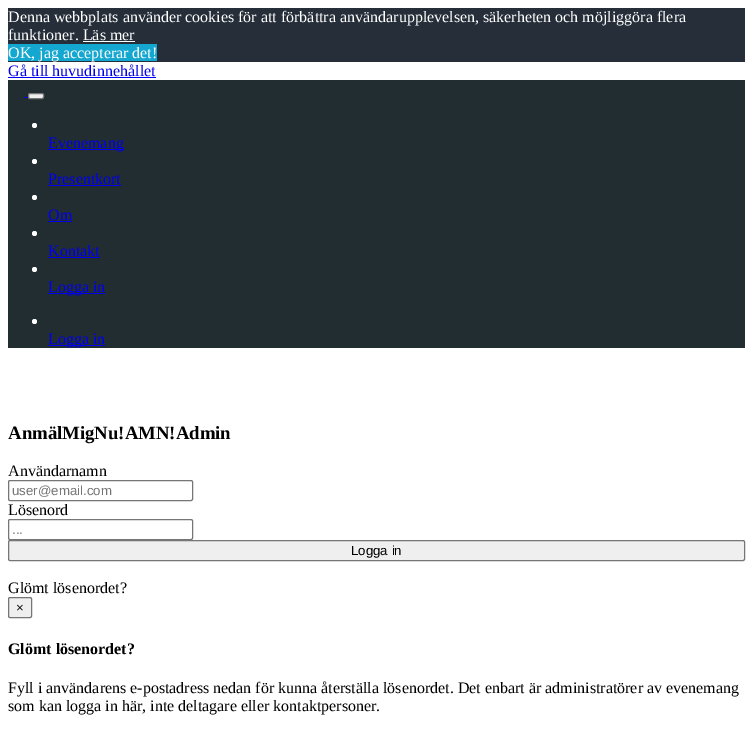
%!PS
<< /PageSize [753 730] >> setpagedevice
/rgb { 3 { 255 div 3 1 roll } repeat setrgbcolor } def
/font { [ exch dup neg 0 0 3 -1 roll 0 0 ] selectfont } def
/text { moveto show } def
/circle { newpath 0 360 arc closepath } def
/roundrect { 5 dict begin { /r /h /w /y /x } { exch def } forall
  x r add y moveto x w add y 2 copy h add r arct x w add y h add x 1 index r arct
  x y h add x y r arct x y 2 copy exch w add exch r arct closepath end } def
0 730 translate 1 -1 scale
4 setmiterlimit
255 255 255 rgb
0 0 753 730 rectfill
37 46 57 rgb
8 8 737 54 rectfill
255 255 255 rgb
83 41 52 1 rectfill
20 167 208 rgb
8 44 149 17 rectfill
0 0 238 rgb
8 77 148 1 rectfill
34 45 50 rgb
8 80 737 268 rectfill
0 0 238 rgb
24 97 4 1 rectfill
239 239 239 rgb
28.5 93.5 15 5 1.5 roundrect gsave fill grestore
118 118 118 rgb
stroke
255 255 255 rgb
34.5 125.5 2.5 circle fill
0 0 238 rgb
48 149 76 1 rectfill
255 255 255 rgb
34.5 161.5 2.5 circle fill
0 0 238 rgb
48 185 73 1 rectfill
255 255 255 rgb
34.5 197.5 2.5 circle fill
0 0 238 rgb
48 221 24 1 rectfill
255 255 255 rgb
34.5 233.5 2.5 circle fill
0 0 238 rgb
48 257 52 1 rectfill
255 255 255 rgb
34.5 269.5 2.5 circle fill
0 0 238 rgb
48 293 57 1 rectfill
255 255 255 rgb
34.5 321.5 2.5 circle fill
0 0 238 rgb
48 345 57 1 rectfill
118 118 118 rgb
8.5 480.5 184 20 1.5 roundrect stroke
8.5 519.5 184 20 1.5 roundrect stroke
239 239 239 rgb
8.5 540.5 736 20 1.5 roundrect gsave fill grestore
118 118 118 rgb
stroke
239 239 239 rgb
8.5 597.5 23 20 1.5 roundrect gsave fill grestore
118 118 118 rgb
stroke
/LiberationSerif-Regular 16 font
255 255 255 rgb
(Denna webbplats använder cookies för att förbättra användarupplevelsen, säkerheten och möjliggöra flera) 8 22 text
(funktioner. Läs mer) 8 40 text
(OK, jag accepterar det!) 8 58 text
0 0 238 rgb
(Gå till huvudinnehållet) 8 76 text
(Evenemang) 48 148 text
(Presentkort) 48 184 text
(Om) 48 220 text
(Kontakt) 48 256 text
(Logga in) 48 292 text
(Logga in) 48 344 text
/LiberationSerif-Bold 18.75 font
0 0 0 rgb
(AnmälMigNu!AMN!Admin) 8 439 text
/LiberationSerif-Regular 16 font
(Användarnamn) 8 476 text
/LiberationSans-Regular 13.25 font
117 117 117 rgb
(user@email.com) 12 495 text
/LiberationSerif-Regular 16 font
0 0 0 rgb
(Lösenord) 8 515 text
/LiberationSans-Regular 13.25 font
117 117 117 rgb
(...) 12 534 text
0 0 0 rgb
(Logga in) 351 555 text
/LiberationSerif-Regular 16 font
(Glömt lösenordet?) 8 593 text
/LiberationSans-Regular 13.25 font
(×) 16 612 text
/LiberationSerif-Bold 16 font
(Glömt lösenordet?) 8 654 text
/LiberationSerif-Regular 16 font
(Fyll i användarens e-postadress nedan för kunna återställa lösenordet. Det enbart är administratörer av evenemang) 8 693 text
(som kan logga in här, inte deltagare eller kontaktpersoner.) 8 711 text
showpage
